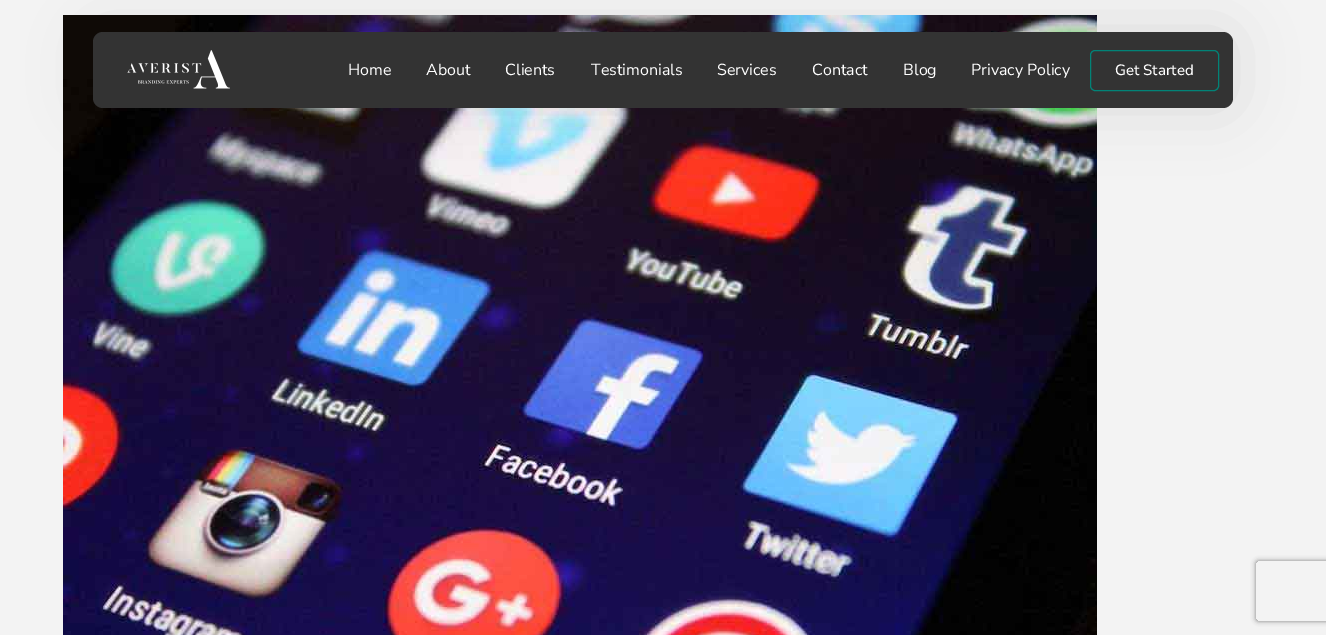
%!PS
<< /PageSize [1326 635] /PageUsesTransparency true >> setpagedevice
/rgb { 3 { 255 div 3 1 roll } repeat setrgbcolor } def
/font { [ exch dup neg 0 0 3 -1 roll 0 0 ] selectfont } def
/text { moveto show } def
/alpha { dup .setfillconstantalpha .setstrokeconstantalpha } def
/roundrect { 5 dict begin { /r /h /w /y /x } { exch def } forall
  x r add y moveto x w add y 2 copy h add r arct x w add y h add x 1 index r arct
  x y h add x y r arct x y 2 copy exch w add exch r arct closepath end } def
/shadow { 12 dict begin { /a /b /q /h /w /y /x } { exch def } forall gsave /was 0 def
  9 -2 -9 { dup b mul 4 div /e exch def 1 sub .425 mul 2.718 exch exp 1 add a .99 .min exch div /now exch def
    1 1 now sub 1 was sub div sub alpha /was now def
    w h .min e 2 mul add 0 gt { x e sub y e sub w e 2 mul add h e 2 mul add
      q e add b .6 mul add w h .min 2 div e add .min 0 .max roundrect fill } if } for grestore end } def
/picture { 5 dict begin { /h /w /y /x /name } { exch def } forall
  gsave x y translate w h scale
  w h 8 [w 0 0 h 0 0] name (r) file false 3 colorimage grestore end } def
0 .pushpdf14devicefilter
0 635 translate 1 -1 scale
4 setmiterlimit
243 243 243 rgb
0 0 1326 635 rectfill
(img_01.rgb) 63 15 1034 620 picture
0 0 0 rgb
93 32 1140 76 10 30 0.1 shadow
51 51 51 rgb
93 32 1140 76 10 roundrect fill
(img_02.rgb) 127 50 103 39 picture
1 131 119 rgb
1090.5 50.5 128 40 4.5 roundrect stroke
gsave
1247 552 moveto 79 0 rlineto 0 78 rlineto -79 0 rlineto closepath 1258 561 moveto 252 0 rlineto 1 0 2 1 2 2 rcurveto 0 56 rlineto 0 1 -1 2 -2 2 rcurveto -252 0 rlineto -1 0 -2 -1 -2 -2 rcurveto 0 -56 rlineto 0 -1 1 -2 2 -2 rcurveto closepath eoclip newpath
128 128 128 rgb
1256 561 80 60 2 2.5 1 shadow
grestore
/NunitoSans-Regular 16 font
255 255 255 rgb
(Home) 348 75 text
(About) 426 75 text
(Clients) 505 75 text
(Testimonials) 591 75 text
(Services) 717 75 text
(Contact) 812 75 text
(Blog) 903 75 text
(Privacy Policy) 971 75 text
/NunitoSans-Medium 15 font
(Get Started) 1115 75 text
.poppdf14devicefilter showpage
